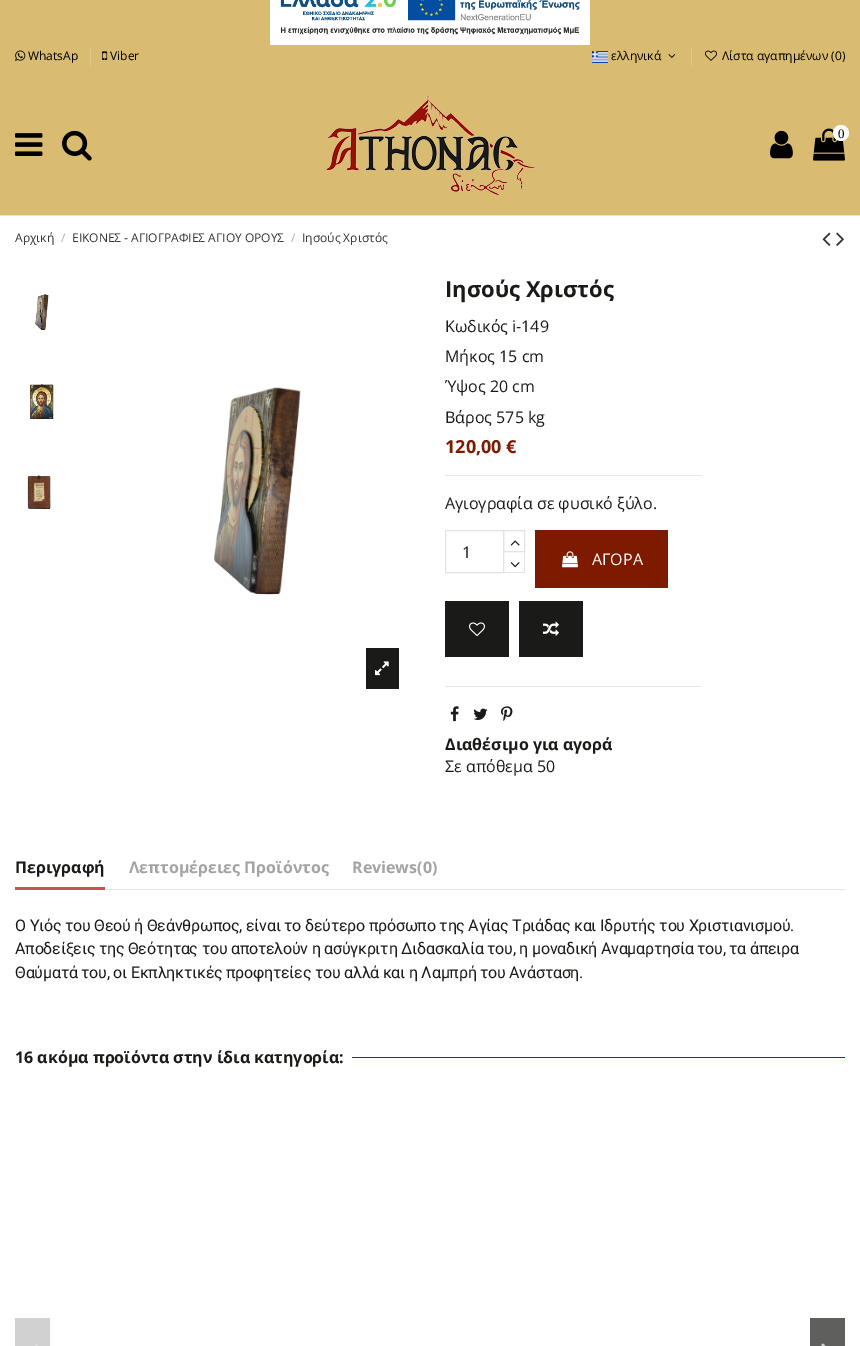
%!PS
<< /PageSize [860 1346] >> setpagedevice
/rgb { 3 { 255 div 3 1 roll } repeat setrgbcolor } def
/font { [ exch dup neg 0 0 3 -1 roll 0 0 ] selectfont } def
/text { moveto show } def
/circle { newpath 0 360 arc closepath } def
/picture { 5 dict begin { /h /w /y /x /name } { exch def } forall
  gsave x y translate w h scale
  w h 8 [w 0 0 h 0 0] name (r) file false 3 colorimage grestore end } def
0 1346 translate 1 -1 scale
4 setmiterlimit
255 255 255 rgb
0 0 860 1346 rectfill
217 187 113 rgb
0 0 860 215 rectfill
(img_01.rgb) 270 0 320 45 picture
(img_02.rgb) 15 50 11 11 picture
225 201 141 rgb
90 48 1 18 rectfill
(img_03.rgb) 102 51 6 9 picture
(img_04.rgb) 592 51 16 12 picture
(img_05.rgb) 668 54 8 4 picture
691 48 1 18 rectfill
(img_06.rgb) 705 50 12 11 picture
227 227 227 rgb
0 215 860 1 rectfill
(img_07.rgb) 15 133 28 23 picture
(img_08.rgb) 62 130 30 31 picture
(img_09.rgb) 326 95 211 100 picture
(img_10.rgb) 770 130 23 29 picture
(img_11.rgb) 813 128 32 33 picture
255 255 255 rgb
841 133 8 circle fill
(img_12.rgb) 822 232 9 14 picture
(img_13.rgb) 836 232 8 14 picture
(img_14.rgb) 35 294 14 36 picture
(img_15.rgb) 30 384 24 36 picture
(img_16.rgb) 27 475 24 34 picture
(img_17.rgb) 214 387 87 208 picture
26 26 24 rgb
366 648 33 41 rectfill
(img_18.rgb) 375 661 14 15 picture
232 232 232 rgb
445 475 257 1 rectfill
227 227 227 rgb
445.5 530.5 58 42 rectstroke
503.5 530.5 21 21 rectstroke
(img_19.rgb) 510 540 10 6 picture
255 255 255 rgb
503 552 1 20 rectfill
227 227 227 rgb
525 552 moveto 0 21 rlineto -1 -1 rlineto 0 -19 rlineto closepath fill
503 572 22 1 rectfill
503 573 moveto 0 -21 rlineto 1 1 rlineto 0 19 rlineto closepath fill
(img_20.rgb) 510 562 10 6 picture
126 26 0 rgb
535 530 133 58 rectfill
(img_21.rgb) 562 551 16 17 picture
26 26 24 rgb
445 601 64 56 rectfill
(img_22.rgb) 469 622 16 15 picture
519 601 64 56 rectfill
(img_23.rgb) 543 621 16 15 picture
232 232 232 rgb
445 686 257 1 rectfill
(img_24.rgb) 450 706 9 16 picture
(img_25.rgb) 473 708 15 12 picture
(img_26.rgb) 501 706 12 16 picture
105 889 740 1 rectfill
202 80 88 rgb
15 887 90 3 rectfill
126 26 0 rgb
352 1057 493 1 rectfill
209 209 209 rgb
15 1318 35 28 rectfill
(img_27.rgb) 35 1344 3 2 picture
95 95 93 rgb
810 1318 35 28 rectfill
(img_28.rgb) 821 1343 5 3 picture
/OpenSans-Regular 12 font
0 0 0 rgb
(WhatsAp) 28 60 text
(Viber) 110 60 text
(ελληνικά) 611 60 text
(Λίστα αγαπημένων \(0\)) 722 60 text
/LiberationSerif-Regular 13 font
(0) 838 138 text
/OpenSans-Regular 12 font
52 52 52 rgb
(Αρχική) 15 242 text
174 174 174 rgb
(/) 61 242 text
52 52 52 rgb
(ΕΙΚΟΝΕΣ - ΑΓΙΟΓΡΑΦΙΕΣ ΑΓΙΟΥ ΟΡΟΥΣ) 72 242 text
174 174 174 rgb
(/) 291 242 text
52 52 52 rgb
(Ιησούς Χριστός) 302 242 text
/OpenSans-Bold 22 font
26 26 24 rgb
(Ιησούς Χριστός) 445 297 text
/OpenSans-Regular 16 font
(Κωδικός i-149) 445 332 text
(Μήκος 15 cm) 445 362 text
(Ύψος 20 cm) 445 392 text
(Βάρος 575 kg) 445 423 text
/OpenSans-Bold 18 font
126 26 0 rgb
(120,00 €) 445 453 text
/OpenSans-Regular 16 font
26 26 24 rgb
(Αγιογραφία σε φυσικό ξύλο.) 445 509 text
(1) 462 558 text
255 255 255 rgb
(ΑΓΟΡΑ) 592 565 text
/OpenSans-Bold 16 font
26 26 24 rgb
(Διαθέσιμο για αγορά) 445 750 text
/OpenSans-Regular 16 font
(Σε απόθεμα 50) 445 772 text
/OpenSans-Bold 16 font
(Περιγραφή) 15 873 text
163 163 163 rgb
(Λεπτομέρειες Προϊόντος) 129 873 text
(Reviews\(0\)) 352 873 text
/Roboto-Regular 16 font
26 26 24 rgb
15 931 moveto -0.24 0 (Ο Υιός του Θεού ή Θεάνθρωπος, είναι το δεύτερο πρόσωπο της Αγίας Τριάδας και Ιδρυτής του Χριστιανισμού.) ashow
15 954 moveto -0.24 0 (Αποδείξεις της Θεότητας του αποτελούν η ασύγκριτη Διδασκαλία του, η μοναδική Αναμαρτησία του, τα άπειρα) ashow
15 978 moveto -0.24 0 (Θαύματά του, οι Εκπληκτικές προφητείες του αλλά και η Λαμπρή του Ανάσταση.) ashow
/OpenSans-Bold 16 font
(16 ακόμα προϊόντα στην ίδια κατηγορία:) 15 1063 text
showpage
